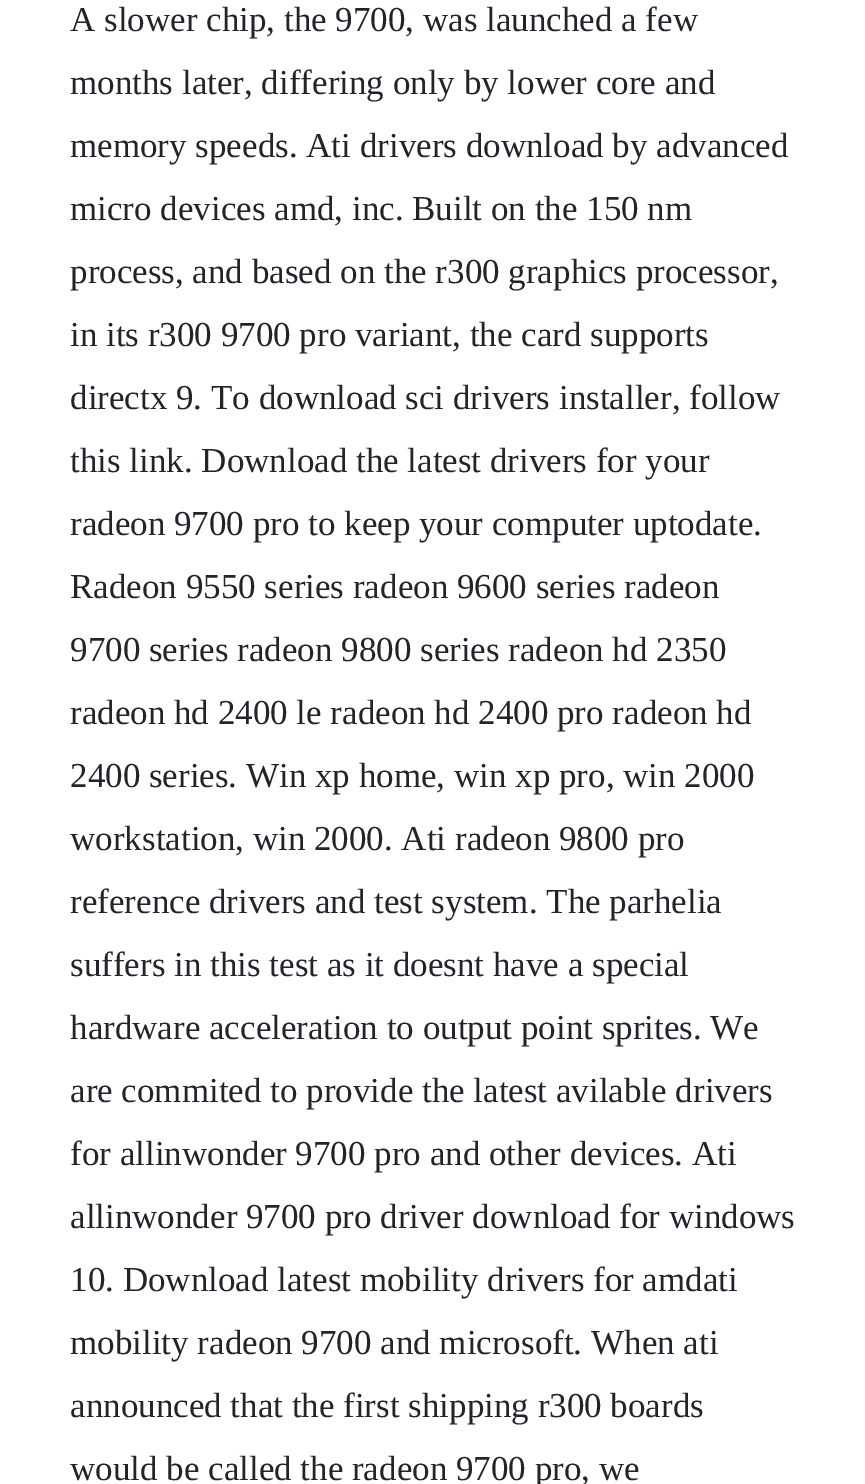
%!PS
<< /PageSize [865 1484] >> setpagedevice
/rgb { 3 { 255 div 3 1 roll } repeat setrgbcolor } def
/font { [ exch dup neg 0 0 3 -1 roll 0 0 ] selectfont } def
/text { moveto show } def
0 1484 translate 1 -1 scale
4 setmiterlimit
255 255 255 rgb
0 0 865 1484 rectfill
/LiberationSerif-Regular 35 font
33 37 41 rgb
(A slower chip, the 9700, was launched a few) 70 31 text
(months later, differing only by lower core and) 70 94 text
(memory speeds. Ati drivers download by advanced) 70 157 text
(micro devices amd, inc. Built on the 150 nm) 70 220 text
(process, and based on the r300 graphics processor,) 70 283 text
(in its r300 9700 pro variant, the card supports) 70 346 text
(directx 9. To download sci drivers installer, follow) 70 409 text
(this link. Download the latest drivers for your) 70 472 text
(radeon 9700 pro to keep your computer uptodate.) 70 535 text
(Radeon 9550 series radeon 9600 series radeon) 70 598 text
(9700 series radeon 9800 series radeon hd 2350) 70 661 text
(radeon hd 2400 le radeon hd 2400 pro radeon hd) 70 724 text
(2400 series. Win xp home, win xp pro, win 2000) 70 787 text
(workstation, win 2000. Ati radeon 9800 pro) 70 850 text
(reference drivers and test system. The parhelia) 70 913 text
(suffers in this test as it doesnt have a special) 70 976 text
(hardware acceleration to output point sprites. We) 70 1039 text
(are commited to provide the latest avilable drivers) 70 1102 text
(for allinwonder 9700 pro and other devices. Ati) 70 1165 text
(allinwonder 9700 pro driver download for windows) 70 1228 text
(10. Download latest mobility drivers for amdati) 70 1291 text
(mobility radeon 9700 and microsoft. When ati) 70 1354 text
(announced that the first shipping r300 boards) 70 1417 text
(would be called the radeon 9700 pro, we) 70 1480 text
showpage
